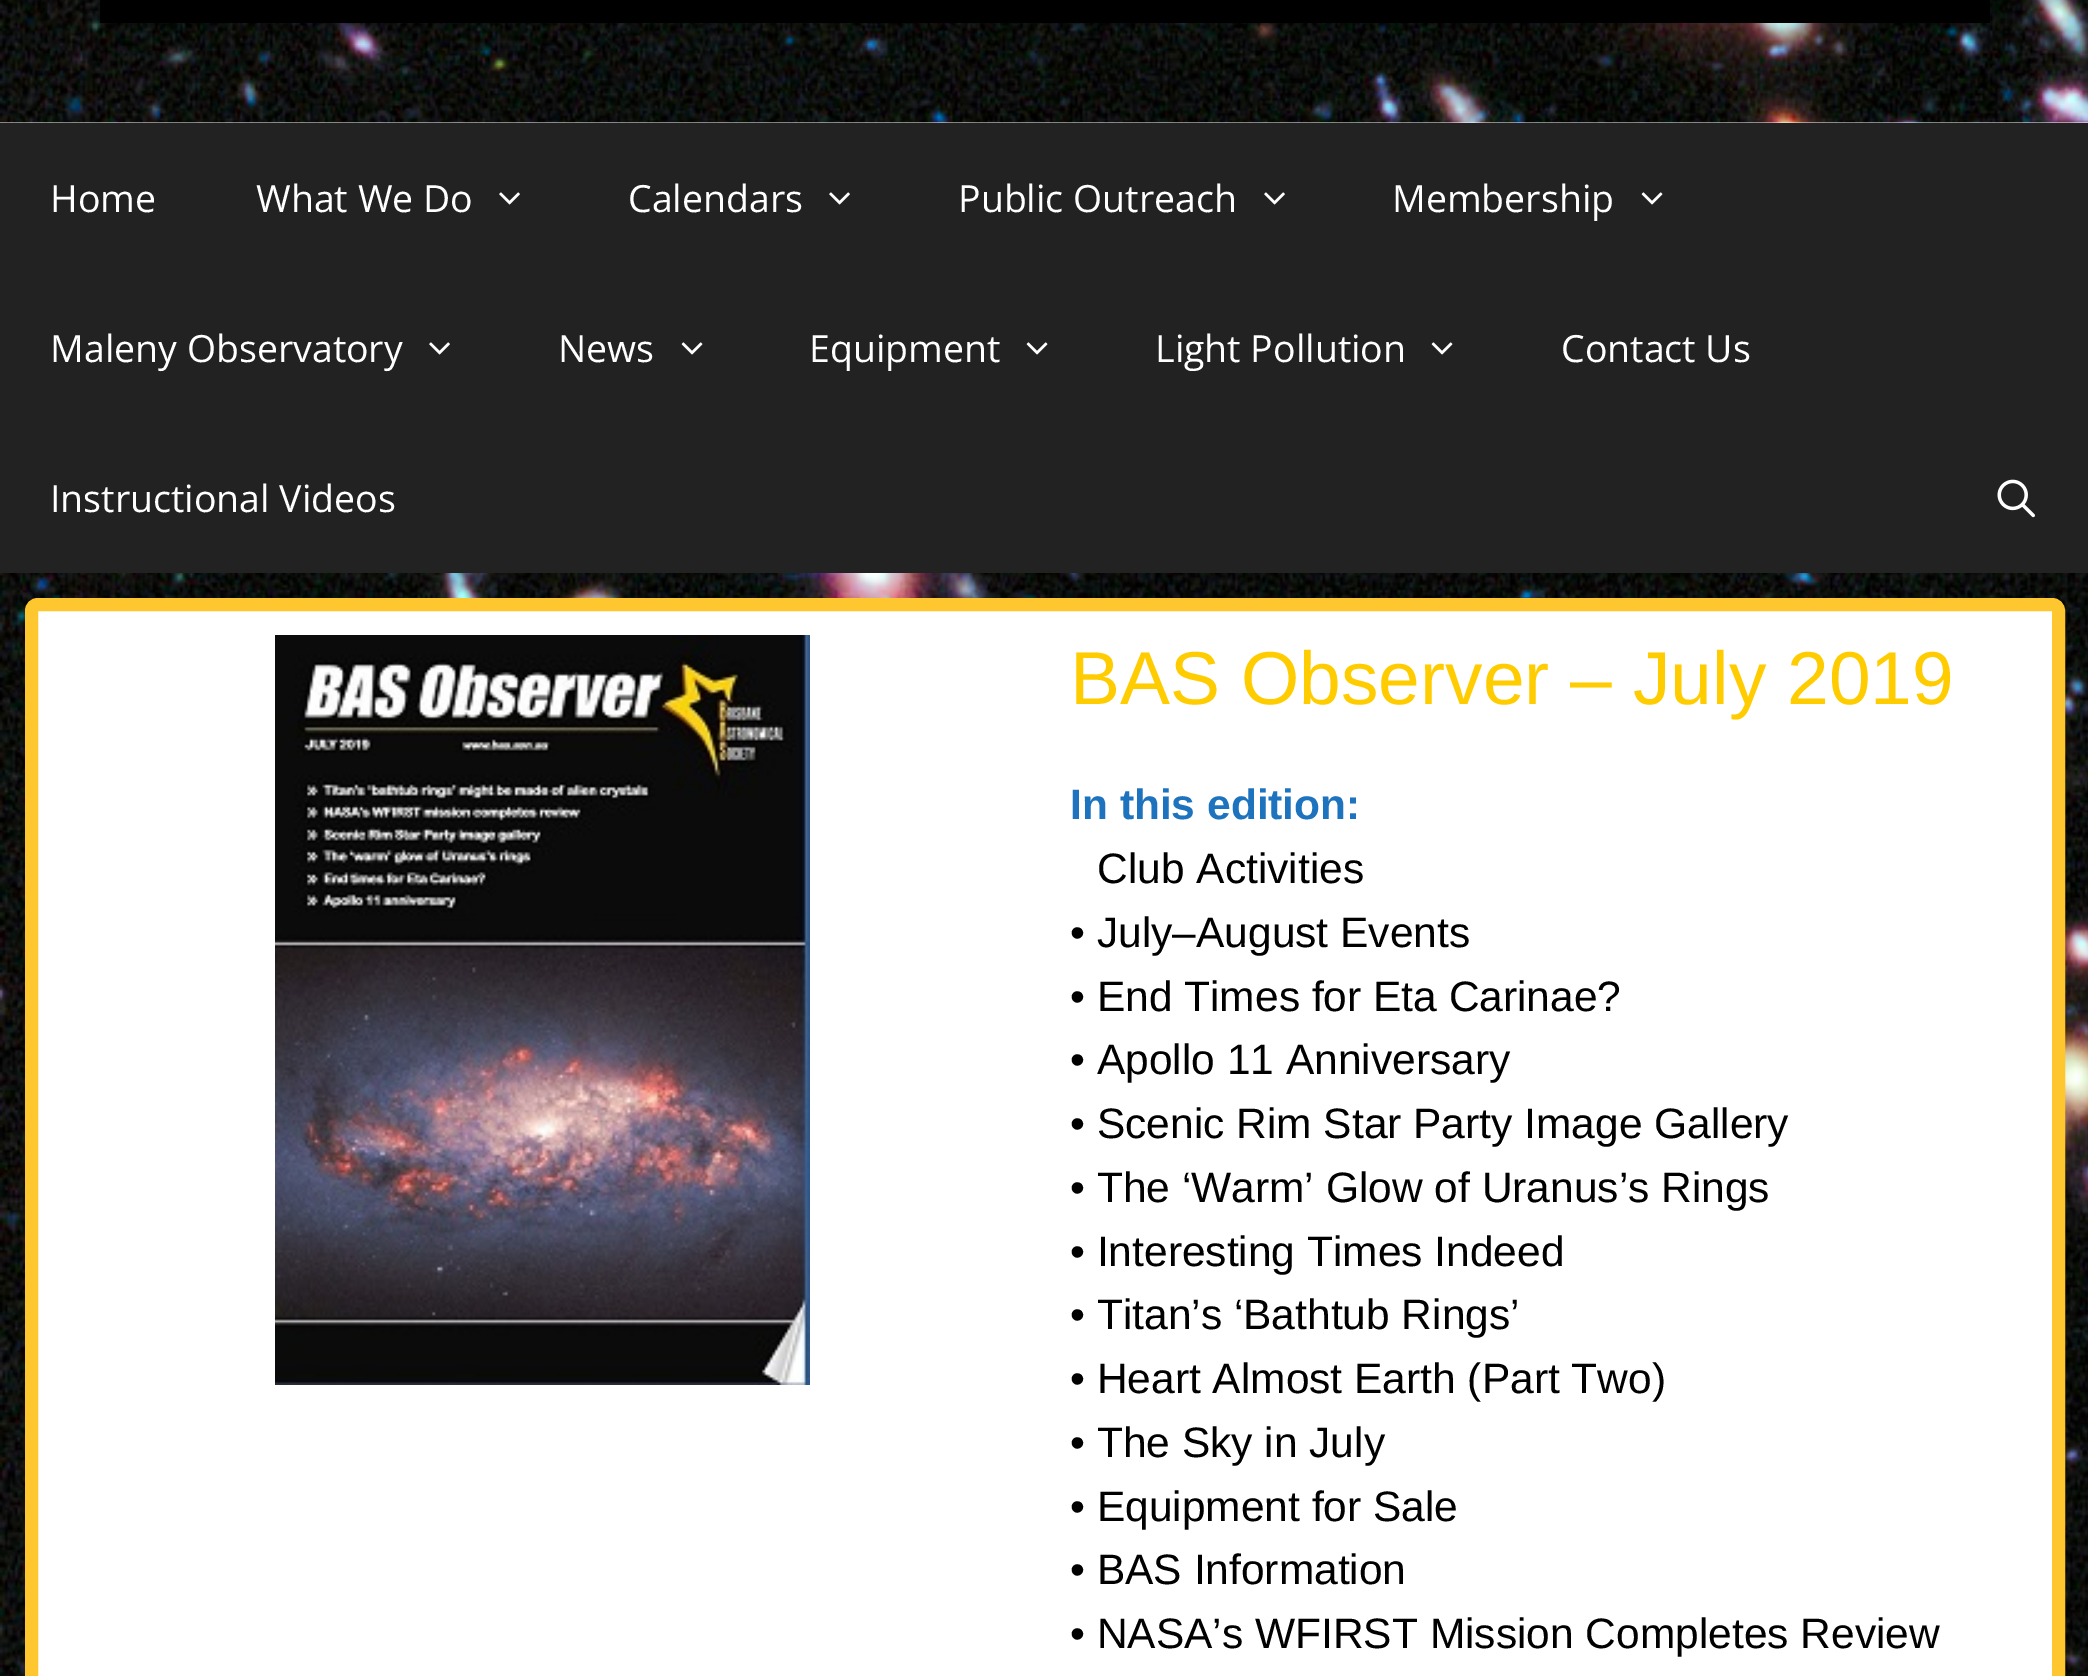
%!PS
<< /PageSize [2088 1676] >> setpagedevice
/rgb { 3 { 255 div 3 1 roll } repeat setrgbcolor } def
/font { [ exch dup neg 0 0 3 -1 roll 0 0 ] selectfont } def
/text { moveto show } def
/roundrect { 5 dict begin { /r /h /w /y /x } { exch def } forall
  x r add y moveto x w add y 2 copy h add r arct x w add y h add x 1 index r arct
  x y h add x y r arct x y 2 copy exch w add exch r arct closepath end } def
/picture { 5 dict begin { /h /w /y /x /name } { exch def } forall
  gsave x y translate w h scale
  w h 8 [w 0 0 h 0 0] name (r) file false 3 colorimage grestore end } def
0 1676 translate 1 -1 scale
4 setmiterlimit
255 255 255 rgb
0 0 2088 1676 rectfill
(img_01.rgb) 0 573 2088 1103 picture
(img_02.rgb) 0 0 2088 123 picture
0 0 0 rgb
100 0 1890 23 rectfill
34 34 34 rgb
0 123 2088 450 rectfill
(img_03.rgb) 499 192 21 13 picture
(img_03.rgb) 829 192 21 13 picture
(img_03.rgb) 1264 192 21 13 picture
(img_04.rgb) 1641 192 22 13 picture
(img_03.rgb) 429 342 21 13 picture
(img_04.rgb) 681 342 22 13 picture
(img_04.rgb) 1026 342 22 13 picture
(img_04.rgb) 1431 342 22 13 picture
(img_05.rgb) 1997 479 38 39 picture
255 255 255 rgb
31.5 604.5 2027 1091 6.5 roundrect gsave fill grestore
255 199 47 rgb
13 setlinewidth
stroke
(img_06.rgb) 275 635 535 750 picture
/OpenSans-Regular 37.5 font
255 255 255 rgb
(Home) 50 212 text
(What We Do) 256 212 text
(Calendars) 628 212 text
(Public Outreach) 958 212 text
(Membership) 1392 212 text
(Maleny Observatory) 50 362 text
(News) 558 362 text
(Equipment) 809 362 text
(Light Pollution) 1155 362 text
(Contact Us) 1561 362 text
(Instructional Videos) 50 512 text
/LiberationSans-Regular 75 font
255 204 0 rgb
(BAS Observer – July 2019) 1070 704 text
/LiberationSans-Bold 42.5 font
30 115 190 rgb
(In this edition:) 1070 819 text
/LiberationSans-Regular 42.5 font
0 0 0 rgb
(Club Activities) 1097 883 text
(• July–August Events) 1070 947 text
(• End Times for Eta Carinae?) 1070 1011 text
(• Apollo 11 Anniversary) 1070 1074 text
(• Scenic Rim Star Party Image Gallery) 1070 1138 text
(• The ‘Warm’ Glow of Uranus’s Rings) 1070 1202 text
(• Interesting Times Indeed) 1070 1266 text
(• Titan’s ‘Bathtub Rings’) 1070 1329 text
(• Heart Almost Earth \(Part Two\)) 1070 1393 text
(• The Sky in July) 1070 1457 text
(• Equipment for Sale) 1070 1521 text
(• BAS Information) 1070 1584 text
(• NASA’s WFIRST Mission Completes Review) 1070 1648 text
showpage
